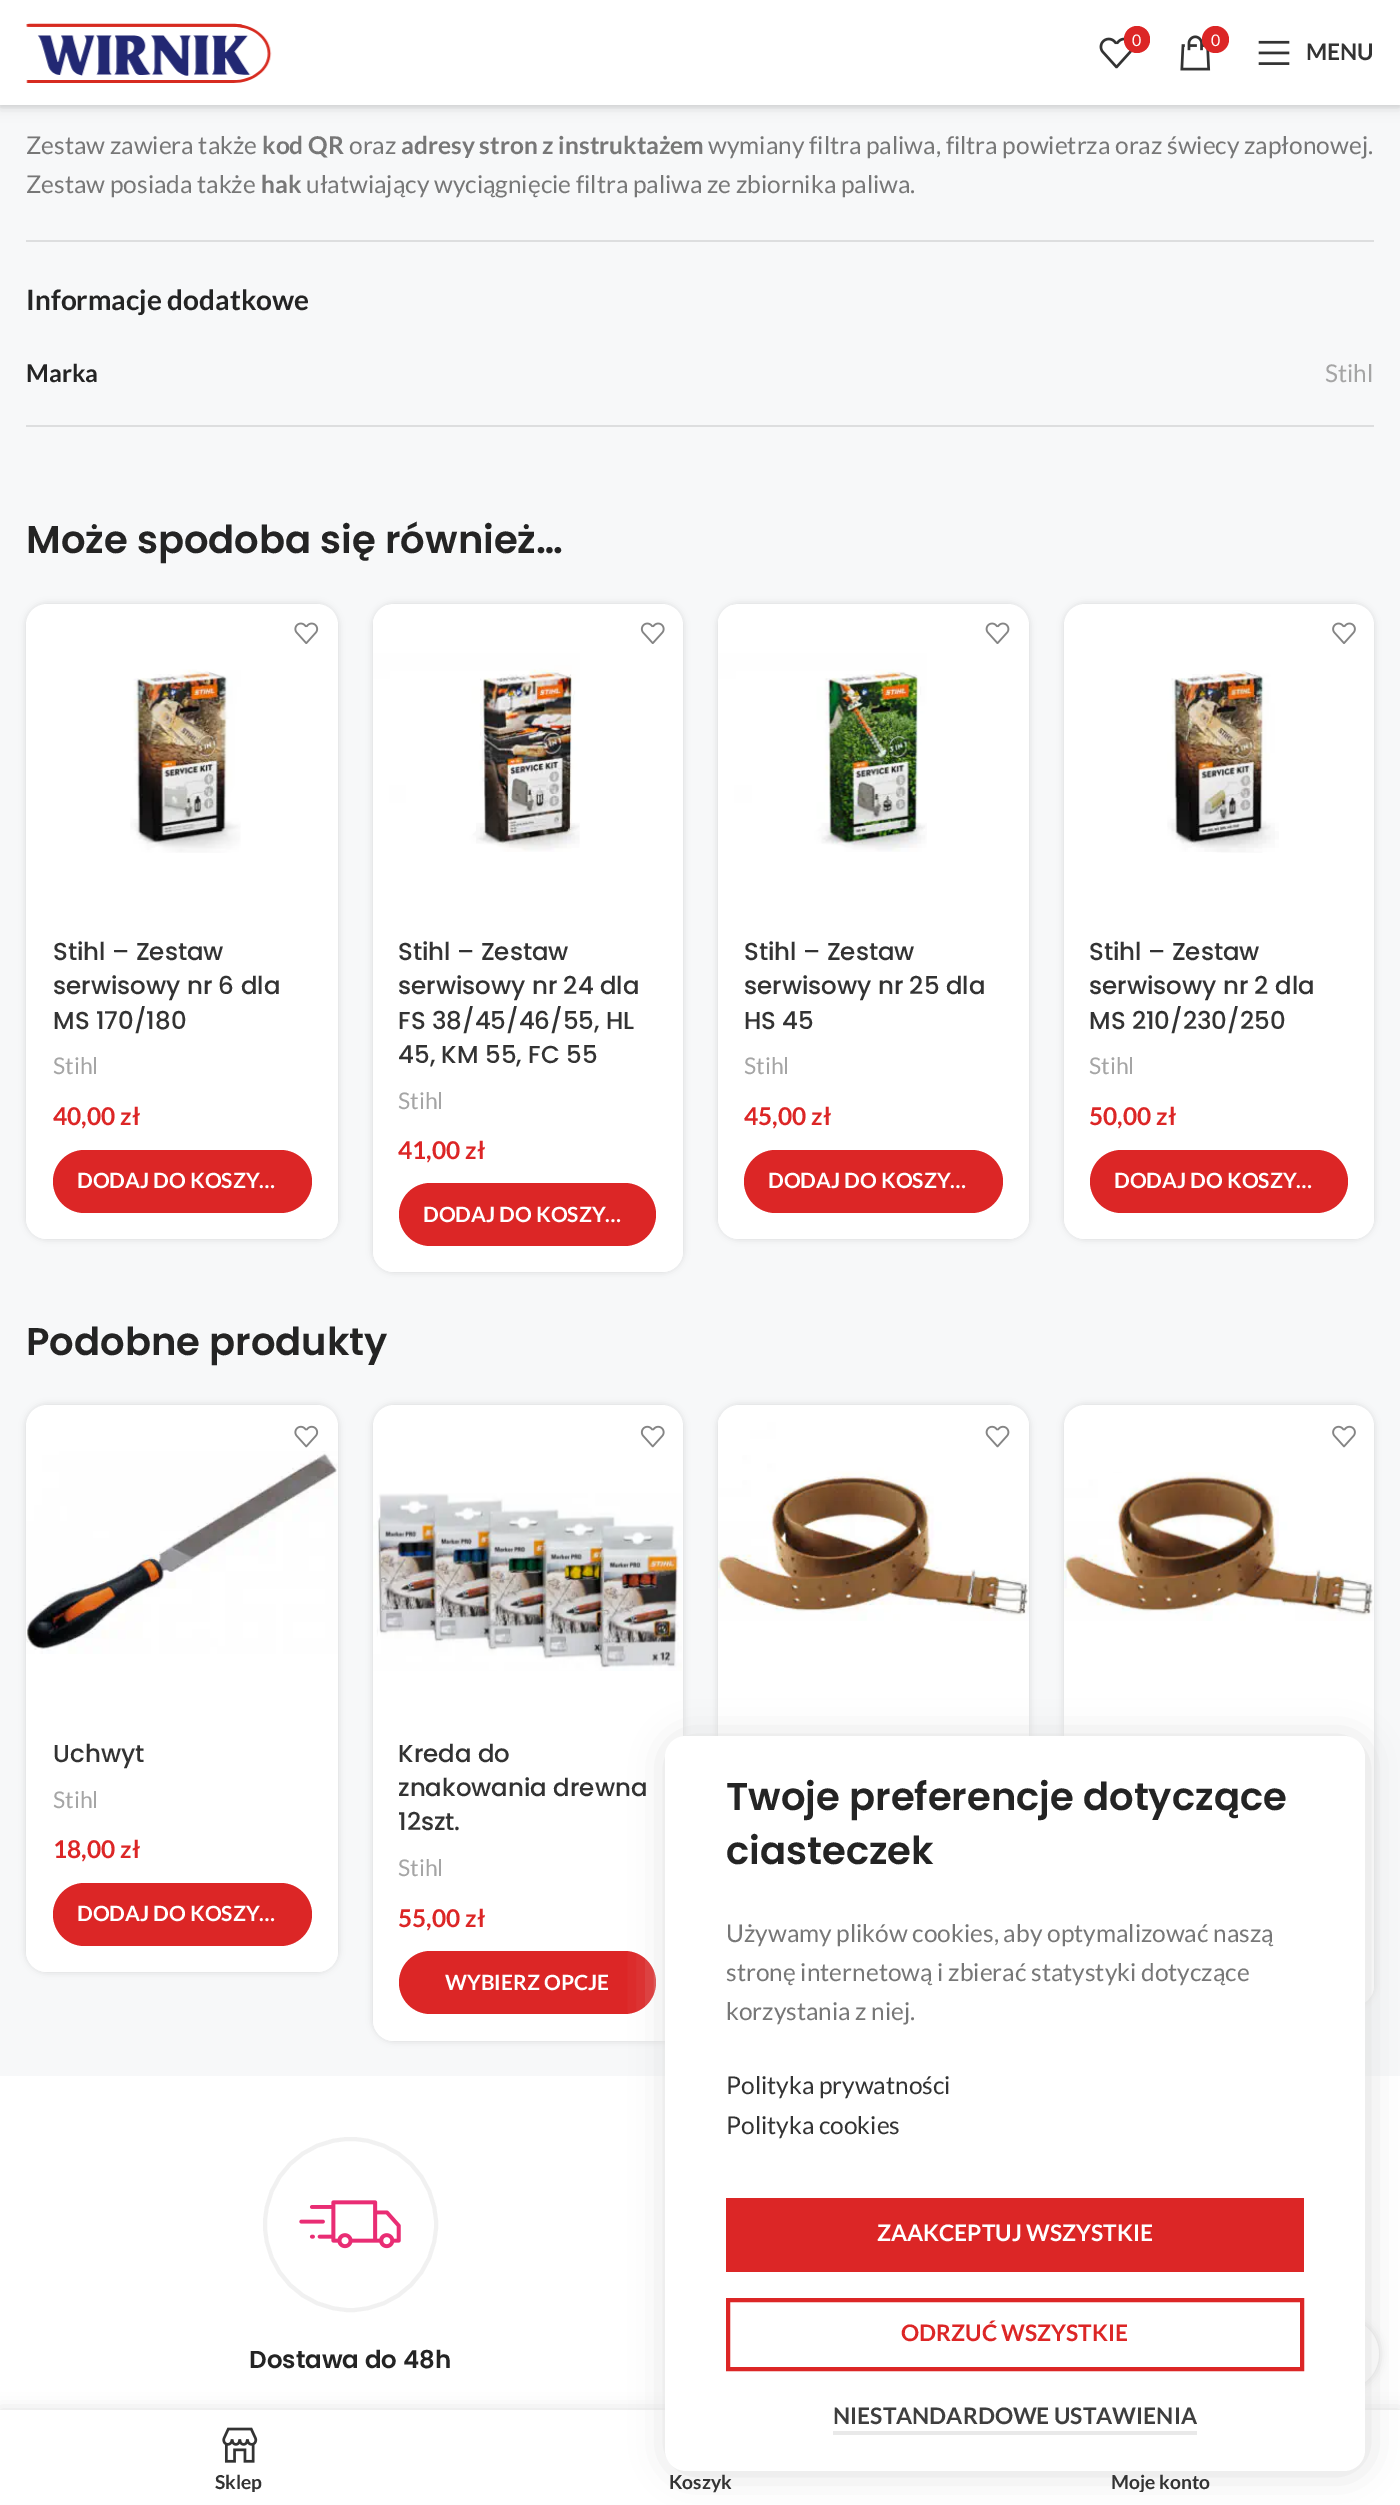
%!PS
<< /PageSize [1400 2505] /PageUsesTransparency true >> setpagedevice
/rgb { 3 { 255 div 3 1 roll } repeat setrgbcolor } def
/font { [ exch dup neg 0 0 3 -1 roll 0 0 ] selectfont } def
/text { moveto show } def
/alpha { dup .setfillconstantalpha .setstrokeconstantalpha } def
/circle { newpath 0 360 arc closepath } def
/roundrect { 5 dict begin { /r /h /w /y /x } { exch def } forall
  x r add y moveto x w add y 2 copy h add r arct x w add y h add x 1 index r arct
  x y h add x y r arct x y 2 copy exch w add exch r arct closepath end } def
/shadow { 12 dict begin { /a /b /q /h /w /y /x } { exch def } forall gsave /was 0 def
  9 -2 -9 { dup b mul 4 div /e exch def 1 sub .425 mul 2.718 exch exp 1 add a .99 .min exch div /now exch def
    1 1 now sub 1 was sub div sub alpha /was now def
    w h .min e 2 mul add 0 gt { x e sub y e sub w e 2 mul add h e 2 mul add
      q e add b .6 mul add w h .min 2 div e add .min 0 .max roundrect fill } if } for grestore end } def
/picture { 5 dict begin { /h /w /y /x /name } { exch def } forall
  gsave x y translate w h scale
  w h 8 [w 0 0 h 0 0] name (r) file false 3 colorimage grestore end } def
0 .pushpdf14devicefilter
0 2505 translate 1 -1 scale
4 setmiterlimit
255 255 255 rgb
0 0 1400 2505 rectfill
247 248 249 rgb
0 105 1400 1971 rectfill
0 0 0 rgb
0 2 1400 105 0 2.5 0.1 shadow
0 2 1400 105 0 7 0.1 shadow
255 255 255 rgb
0 0 1400 105 rectfill
(img_01.rgb) 26 23 246 60 picture
(img_02.rgb) 1099 37 33 32 picture
220 38 38 rgb
1124 26 26 27 13 roundrect fill
(img_03.rgb) 1180 35 31 36 picture
1215.5 39.5 13.5 circle fill
(img_04.rgb) 1258 40 32 25 picture
221 222 223 rgb
26 240 1348 2 rectfill
26 425 1348 2 rectfill
0 0 0 rgb
26 604 312 635 21 3.5 0.12 shadow
255 255 255 rgb
26 604 312 635 21 roundrect fill
(img_05.rgb) 294 622 25 22 picture
(img_06.rgb) 130 669 111 184 picture
26 914 moveto 312 0 rlineto 0 304 rlineto 0 11.5 -9.5 21 -21 21 rcurveto -270 0 rlineto -11.5 0 -21 -9.5 -21 -21 rcurveto closepath fill
220 38 38 rgb
53 1150 259 63 31.5 roundrect fill
0 0 0 rgb
373 604 310 668 21 3.5 0.12 shadow
255 255 255 rgb
373 604 310 668 21 roundrect fill
(img_07.rgb) 373 605 207 247 picture
(img_08.rgb) 640 622 25 22 picture
373 914 moveto 310 0 rlineto 0 337 rlineto 0 11.5 -9.5 21 -21 21 rcurveto -268 0 rlineto -11.5 0 -21 -9.5 -21 -21 rcurveto closepath fill
220 38 38 rgb
399 1183 257 63 31.5 roundrect fill
0 0 0 rgb
718 604 311 635 21 3.5 0.12 shadow
255 255 255 rgb
718 604 311 635 21 roundrect fill
(img_09.rgb) 718 605 209 247 picture
(img_10.rgb) 985 622 25 22 picture
718 914 moveto 311 0 rlineto 0 304 rlineto 0 11.5 -9.5 21 -21 21 rcurveto -269 0 rlineto -11.5 0 -21 -9.5 -21 -21 rcurveto closepath fill
220 38 38 rgb
744 1150 259 63 31.5 roundrect fill
0 0 0 rgb
1064 604 310 635 21 3.5 0.12 shadow
255 255 255 rgb
1064 604 310 635 21 roundrect fill
(img_11.rgb) 1332 622 24 22 picture
(img_12.rgb) 1167 670 112 183 picture
1064 914 moveto 310 0 rlineto 0 304 rlineto 0 11.5 -9.5 21 -21 21 rcurveto -268 0 rlineto -11.5 0 -21 -9.5 -21 -21 rcurveto closepath fill
220 38 38 rgb
1090 1150 258 63 31.5 roundrect fill
0 0 0 rgb
26 1405 312 567 21 3.5 0.12 shadow
255 255 255 rgb
26 1405 312 567 21 roundrect fill
(img_13.rgb) 294 1425 25 23 picture
(img_14.rgb) 26 1451 312 203 picture
26 1717 moveto 312 0 rlineto 0 234 rlineto 0 11.5 -9.5 21 -21 21 rcurveto -270 0 rlineto -11.5 0 -21 -9.5 -21 -21 rcurveto closepath fill
220 38 38 rgb
53 1883 259 63 31.5 roundrect fill
0 0 0 rgb
373 1405 310 636 21 3.5 0.12 shadow
255 255 255 rgb
373 1405 310 636 21 roundrect fill
(img_15.rgb) 640 1425 25 23 picture
(img_16.rgb) 373 1493 309 178 picture
373 1717 moveto 310 0 rlineto 0 303 rlineto 0 11.5 -9.5 21 -21 21 rcurveto -268 0 rlineto -11.5 0 -21 -9.5 -21 -21 rcurveto closepath fill
220 38 38 rgb
399 1951 257 63 31.5 roundrect fill
0 0 0 rgb
718 1405 311 601 21 3.5 0.12 shadow
255 255 255 rgb
718 1405 311 601 21 roundrect fill
(img_17.rgb) 718 1417 311 204 picture
(img_18.rgb) 985 1425 25 23 picture
0 0 0 rgb
1064 1405 310 601 21 3.5 0.12 shadow
255 255 255 rgb
1064 1405 310 601 21 roundrect fill
(img_19.rgb) 1332 1425 24 23 picture
(img_20.rgb) 1064 1472 310 149 picture
1064 1717 moveto 310 0 rlineto 0 268 rlineto 0 11.5 -9.5 21 -21 21 rcurveto -268 0 rlineto -11.5 0 -21 -9.5 -21 -21 rcurveto closepath fill
241 241 241 rgb
4 setlinewidth
350.5 2224.5 85.5 circle stroke
(img_21.rgb) 299 2200 102 49 picture
gsave
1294 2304 moveto 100 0 rlineto 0 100 rlineto -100 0 rlineto closepath 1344 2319 moveto 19.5 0 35 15.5 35 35 rcurveto 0 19.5 -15.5 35 -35 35 rcurveto -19.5 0 -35 -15.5 -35 -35 rcurveto 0 -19.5 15.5 -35 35 -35 rcurveto closepath eoclip newpath
0 0 0 rgb
1309 2319 70 70 35 4.5 0.17 shadow
grestore
0.9 alpha
255 255 255 rgb
1344 2354 35 circle fill
1 alpha
0 0 0 rgb
0 2410 1400 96 0 8 0.12 shadow
255 255 255 rgb
0 2410 1400 95 rectfill
221 221 221 rgb
667 1738 700 735 21 17.5 1 shadow
255 255 255 rgb
665 1736 700 735 21 roundrect fill
220 38 38 rgb
726 2198 578 74 rectfill
728 2300 574 69 rectstroke
233 233 233 rgb
833 2431 364 4 rectfill
(img_22.rgb) 222 2427 36 36 picture
/Lato-Regular 16 font
255 255 255 rgb
(0) 1132 46 text
(0) 1211 46 text
/Lato-Bold 22.75 font
51 51 51 rgb
(MENU) 1306 60 text
/Lato-Regular 24.5 font
119 119 119 rgb
(Zestaw zawiera także) 26 154 text
/Lato-Bold 24.5 font
(kod QR) 262 154 text
/Lato-Regular 24.5 font
(oraz) 349 154 text
/Lato-Bold 24.5 font
(adresy stron z instruktażem) 401 154 text
/Lato-Regular 24.5 font
(wymiany filtra paliwa, filtra powietrza oraz świecy zapłonowej.) 708 154 text
(Zestaw posiada także) 26 193 text
/Lato-Bold 24.5 font
(hak) 261 193 text
/Lato-Regular 24.5 font
(ułatwiający wyciągnięcie filtra paliwa ze zbiornika paliwa.) 306 193 text
/Lato-Bold 28 font
36 36 36 rgb
(Informacje dodatkowe) 26 310 text
/Lato-Bold 24.5 font
(Marka) 26 382 text
/Lato-Regular 24.5 font
165 165 165 rgb
(Stihl) 1325 382 text
/Poppins-SemiBold 38.5 font
36 36 36 rgb
(Może spodoba się również…) 26 553 text
/Poppins-Medium 24.5 font
51 51 51 rgb
(Stihl – Zestaw) 53 960 text
(serwisowy nr 6 dla) 53 994 text
(MS 170/180) 53 1029 text
/Lato-Regular 23 font
165 165 165 rgb
(Stihl) 53 1074 text
/Lato-Bold 24.5 font
220 38 38 rgb
(40,00 zł) 53 1125 text
/Lato-Bold 21 font
255 255 255 rgb
(DODAJ DO KOSZY…) 77 1188 text
/Poppins-Medium 24.5 font
51 51 51 rgb
(Stihl – Zestaw) 398 960 text
(serwisowy nr 24 dla) 398 994 text
(FS 38/45/46/55, HL) 398 1029 text
(45, KM 55, FC 55) 398 1063 text
/Lato-Regular 23 font
165 165 165 rgb
(Stihl) 398 1109 text
/Lato-Bold 24.5 font
220 38 38 rgb
(41,00 zł) 398 1159 text
/Lato-Bold 21 font
255 255 255 rgb
(DODAJ DO KOSZY…) 423 1222 text
/Poppins-Medium 24.5 font
51 51 51 rgb
(Stihl – Zestaw) 744 960 text
(serwisowy nr 25 dla) 744 994 text
(HS 45) 744 1029 text
/Lato-Regular 23 font
165 165 165 rgb
(Stihl) 744 1074 text
/Lato-Bold 24.5 font
220 38 38 rgb
(45,00 zł) 744 1125 text
/Lato-Bold 21 font
255 255 255 rgb
(DODAJ DO KOSZY…) 768 1188 text
/Poppins-Medium 24.5 font
51 51 51 rgb
(Stihl – Zestaw) 1089 960 text
(serwisowy nr 2 dla) 1089 994 text
(MS 210/230/250) 1089 1029 text
/Lato-Regular 23 font
165 165 165 rgb
(Stihl) 1089 1074 text
/Lato-Bold 24.5 font
220 38 38 rgb
(50,00 zł) 1089 1125 text
/Lato-Bold 21 font
255 255 255 rgb
(DODAJ DO KOSZY…) 1114 1188 text
/Poppins-SemiBold 38.5 font
36 36 36 rgb
(Podobne produkty) 26 1355 text
/Poppins-Medium 24.5 font
51 51 51 rgb
(Uchwyt) 53 1762 text
/Lato-Regular 23 font
165 165 165 rgb
(Stihl) 53 1808 text
/Lato-Bold 24.5 font
220 38 38 rgb
(18,00 zł) 53 1858 text
/Lato-Bold 21 font
255 255 255 rgb
(DODAJ DO KOSZY…) 77 1921 text
/Poppins-Medium 24.5 font
51 51 51 rgb
(Kreda do) 398 1762 text
(znakowania drewna) 398 1796 text
(12szt.) 398 1830 text
/Lato-Regular 23 font
165 165 165 rgb
(Stihl) 398 1876 text
/Lato-Bold 24.5 font
220 38 38 rgb
(55,00 zł) 398 1927 text
/Lato-Bold 21 font
255 255 255 rgb
(WYBIERZ OPCJE) 445 1990 text
/Poppins-SemiBold 24.5 font
36 36 36 rgb
(Dostawa do 48h) 249 2368 text
/Poppins-SemiBold 38.5 font
(Twoje preferencje dotyczące) 726 1810 text
(ciasteczek) 726 1864 text
/Lato-Regular 24.5 font
119 119 119 rgb
(Używamy plików cookies, aby optymalizować naszą) 726 1942 text
(stronę internetową i zbierać statystyki dotyczące) 726 1981 text
(korzystania z niej.) 726 2020 text
51 51 51 rgb
(Polityka prywatności) 726 2094 text
(Polityka cookies) 726 2134 text
/Lato-Bold 22.75 font
255 255 255 rgb
(ZAAKCEPTUJ WSZYSTKIE) 877 2241 text
220 38 38 rgb
(ODRZUĆ WSZYSTKIE) 901 2341 text
62 62 62 rgb
(NIESTANDARDOWE USTAWIENIA) 833 2424 text
gsave
26 2469 426 23 rectclip
/Lato-Bold 19.25 font
51 51 51 rgb
(Sklep) 215 2489 text
grestore
/Lato-Bold 19.25 font
51 51 51 rgb
(Koszyk) 669 2489 text
gsave
949 2469 425 23 rectclip
(Moje konto) 1111 2489 text
grestore
.poppdf14devicefilter showpage
